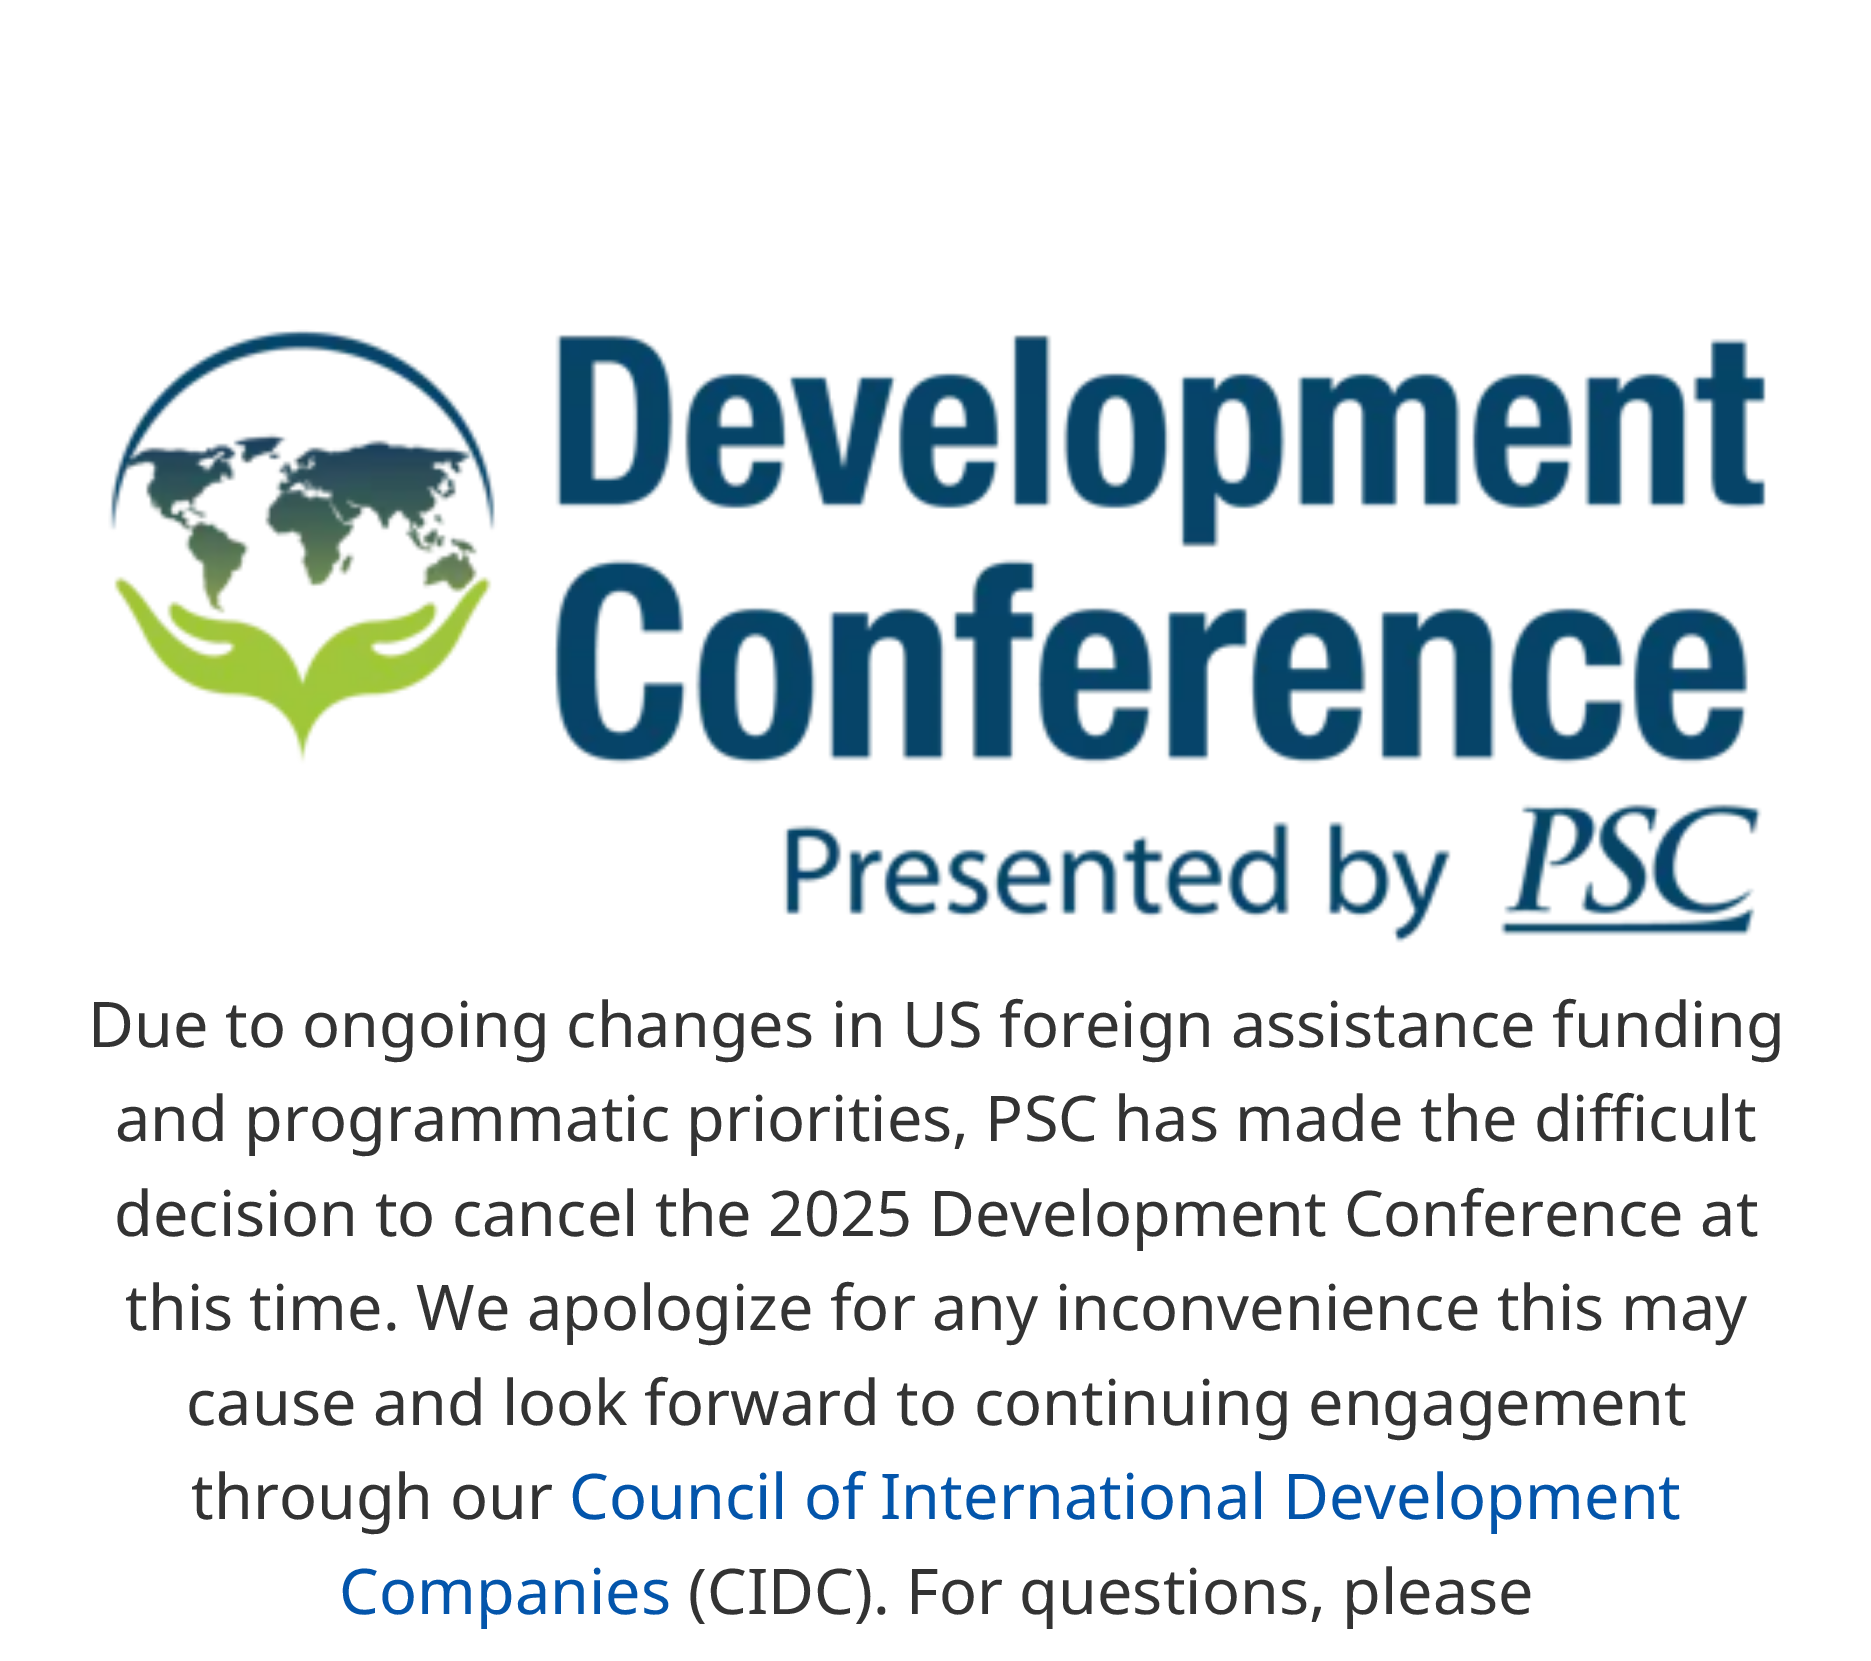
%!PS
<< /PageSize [1871 1661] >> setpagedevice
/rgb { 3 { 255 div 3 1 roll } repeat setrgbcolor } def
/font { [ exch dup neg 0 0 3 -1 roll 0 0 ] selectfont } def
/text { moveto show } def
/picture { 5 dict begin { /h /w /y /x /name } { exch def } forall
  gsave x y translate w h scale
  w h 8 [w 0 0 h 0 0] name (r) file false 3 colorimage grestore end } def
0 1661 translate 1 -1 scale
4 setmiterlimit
255 255 255 rgb
0 0 1871 1661 rectfill
(img_01.rgb) 108 329 1658 614 picture
/NotoSans-Regular 63 font
51 51 51 rgb
(Due to ongoing changes in US foreign assistance funding) 88 1047 text
(and programmatic priorities, PSC has made the difficult) 115 1141 text
(decision to cancel the 2025 Development Conference at) 114 1236 text
(this time. We apologize for any inconvenience this may) 125 1330 text
(cause and look forward to continuing engagement) 186 1425 text
(through our) 191 1519 text
3 85 171 rgb
(Council of International Development) 569 1519 text
(Companies) 339 1614 text
51 51 51 rgb
(\(CIDC\). For questions, please) 688 1614 text
showpage
